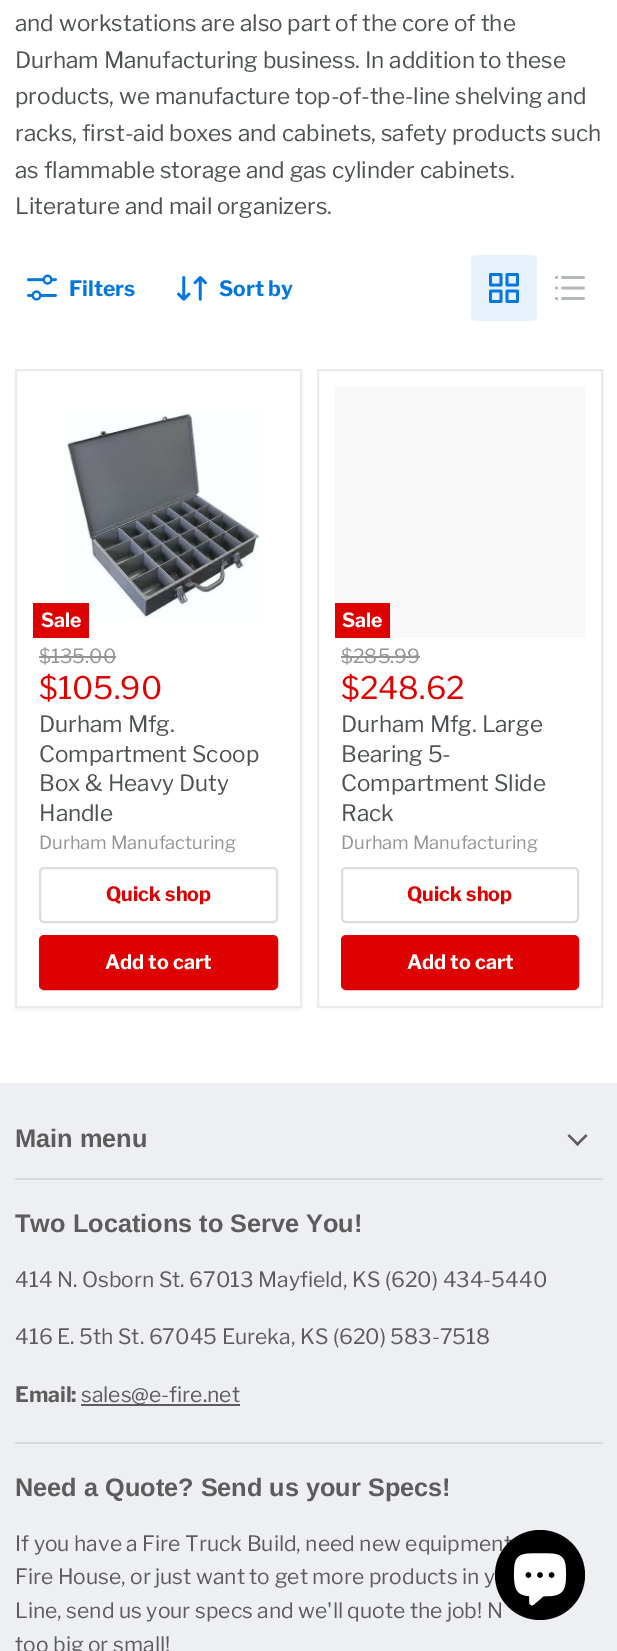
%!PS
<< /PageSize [617 1651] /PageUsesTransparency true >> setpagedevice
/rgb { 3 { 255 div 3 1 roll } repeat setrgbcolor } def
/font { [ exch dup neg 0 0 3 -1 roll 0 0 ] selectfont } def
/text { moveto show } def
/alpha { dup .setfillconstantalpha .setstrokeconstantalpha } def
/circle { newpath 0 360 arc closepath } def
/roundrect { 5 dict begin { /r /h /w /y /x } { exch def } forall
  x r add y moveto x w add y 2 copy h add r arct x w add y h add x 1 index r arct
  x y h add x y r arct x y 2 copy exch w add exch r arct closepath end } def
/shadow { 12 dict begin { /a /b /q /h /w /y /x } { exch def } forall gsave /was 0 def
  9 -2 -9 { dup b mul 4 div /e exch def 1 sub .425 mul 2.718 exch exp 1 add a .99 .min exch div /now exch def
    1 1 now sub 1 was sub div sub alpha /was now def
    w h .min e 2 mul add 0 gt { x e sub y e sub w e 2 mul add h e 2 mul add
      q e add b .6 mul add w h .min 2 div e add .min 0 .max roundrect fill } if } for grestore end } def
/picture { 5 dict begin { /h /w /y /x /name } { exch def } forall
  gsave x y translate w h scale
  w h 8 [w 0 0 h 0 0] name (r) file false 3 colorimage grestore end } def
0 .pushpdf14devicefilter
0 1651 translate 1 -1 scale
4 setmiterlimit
255 255 255 rgb
0 0 617 1651 rectfill
(img_01.rgb) 27 274 30 27 picture
(img_02.rgb) 177 276 30 25 picture
230 241 252 rgb
471 255 66 66 5 roundrect fill
(img_03.rgb) 489 273 30 30 picture
(img_04.rgb) 555 276 30 24 picture
128 128 128 rgb
15 371 287 639 0 3 0.11 shadow
255 255 255 rgb
16 370 moveto 285 0 rlineto 0 637 rlineto -285 0 rlineto closepath gsave fill grestore
235 235 235 rgb
2 setlinewidth
stroke
(img_05.rgb) 66 411 195 209 picture
222 1 1 rgb
33 603 56 35 rectfill
148 148 148 rgb
39 656 77 2 rectfill
221 221 221 rgb
40 868 237 54 4 roundrect stroke
222 1 1 rgb
40 936 237 53 4 roundrect gsave fill grestore
stroke
235 235 235 rgb
318 370 284 637 rectstroke
248 248 248 rgb
335 387 250 251 rectfill
222 1 1 rgb
335 603 55 35 rectfill
148 148 148 rgb
341 656 79 2 rectfill
221 221 221 rgb
342 868 236 54 4 roundrect stroke
222 1 1 rgb
342 936 236 53 4 roundrect gsave fill grestore
stroke
237 239 243 rgb
0 1083 617 568 rectfill
215 217 220 rgb
15 1178 588 2 rectfill
(img_06.rgb) 567 1134 21 12 picture
15 1442 588 2 rectfill
92 92 92 rgb
81 1404 159 2 rectfill
/LibreFranklin-Regular 22.5 font
76 81 84 rgb
(and workstations are also part of the core of the) 15 31 text
(Durham Manufacturing business. In addition to these) 15 68 text
(products, we manufacture top-of-the-line shelving and) 15 104 text
(racks, first-aid boxes and cabinets, safety products such) 15 141 text
(as flammable storage and gas cylinder cabinets.) 15 178 text
(Literature and mail organizers.) 15 214 text
/LibreFranklin-Bold 21.1 font
0 118 222 rgb
(Filters) 69 296 text
(Sort by) 219 296 text
/LibreFranklin-Bold 19.5 font
255 255 255 rgb
(Sale) 41 627 text
/LibreFranklin-Regular 19.5 font
148 148 148 rgb
($135.00) 39 663 text
/LibreFranklin-Regular 31 font
222 1 1 rgb
($105.90) 39 699 text
/LibreFranklin-Regular 22.5 font
76 81 84 rgb
(Durham Mfg.) 39 732 text
(Compartment Scoop) 39 762 text
(Box & Heavy Duty) 39 791 text
(Handle) 39 821 text
/LibreFranklin-Regular 18.25 font
148 148 148 rgb
(Durham Manufacturing) 39 849 text
/LibreFranklin-Bold 19.75 font
222 1 1 rgb
(Quick shop) 106 901 text
255 255 255 rgb
(Add to cart) 105 969 text
/LibreFranklin-Bold 19.5 font
(Sale) 342 627 text
/LibreFranklin-Regular 19.5 font
148 148 148 rgb
($285.99) 341 663 text
/LibreFranklin-Regular 31 font
222 1 1 rgb
($248.62) 341 699 text
/LibreFranklin-Regular 22.5 font
76 81 84 rgb
(Durham Mfg. Large) 341 732 text
(Bearing 5-) 341 762 text
(Compartment Slide) 341 791 text
(Rack) 341 821 text
/LibreFranklin-Regular 18.25 font
148 148 148 rgb
(Durham Manufacturing) 341 849 text
/LibreFranklin-Bold 19.75 font
222 1 1 rgb
(Quick shop) 407 901 text
255 255 255 rgb
(Add to cart) 407 969 text
/Arimo-Bold 25.3 font
92 92 92 rgb
(Main menu) 15 1147 text
(Two Locations to Serve You!) 15 1232 text
/LibreFranklin-Regular 21.1 font
(414 N. Osborn St. 67013 Mayfield, KS \(620\) 434-5440) 15 1287 text
(416 E. 5th St. 67045 Eureka, KS \(620\) 583-7518) 15 1344 text
/LibreFranklin-Bold 21.1 font
(Email:) 15 1402 text
/LibreFranklin-Regular 21.1 font
(sales@e-fire.net) 81 1402 text
/Arimo-Bold 25.3 font
(Need a Quote? Send us your Specs!) 15 1496 text
/LibreFranklin-Regular 21.1 font
(If you have a Fire Truck Build, need new equipment) 15 1551 text
(Fire House, or just want to get more products in y) 15 1584 text
(Line, send us your specs and we'll quote the job! N) 15 1618 text
(too big or small!) 15 1652 text
0 0 0 rgb
540 1575 45 circle fill
(img_07.rgb) 513 1553 54 53 picture
.poppdf14devicefilter showpage
